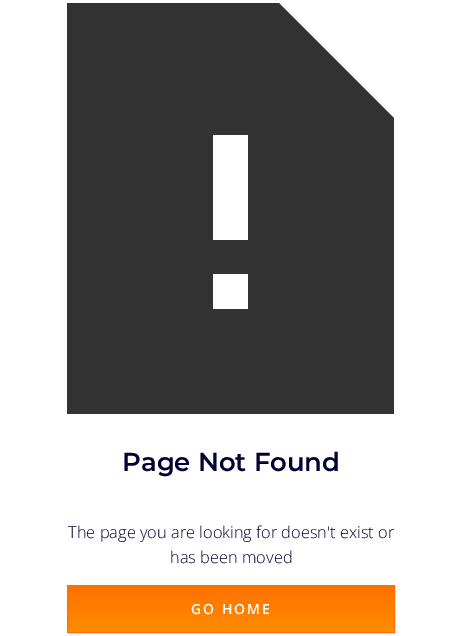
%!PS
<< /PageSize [462 636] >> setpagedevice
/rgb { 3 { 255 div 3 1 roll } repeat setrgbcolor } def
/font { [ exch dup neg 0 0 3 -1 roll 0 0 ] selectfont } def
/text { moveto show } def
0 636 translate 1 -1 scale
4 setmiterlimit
255 255 255 rgb
0 0 462 636 rectfill
51 51 51 rgb
67 3 moveto 212 0 rlineto 115 115 rlineto 0 296 rlineto -327 0 rlineto closepath 213 135 moveto 35 0 rlineto 0 105 rlineto -35 0 rlineto closepath 213 274 moveto 35 0 rlineto 0 35 rlineto -35 0 rlineto closepath eofill
gsave 68 586 moveto 326 0 rlineto 0 46 rlineto -326 0 rlineto closepath clip newpath
<< /ShadingType 2 /ColorSpace /DeviceRGB /Coords [231 586 231 632] /Extend [true true] /Function << /FunctionType 2 /Domain [0 1] /C0 [1 0.443 0] /C1 [0.996 0.549 0] /N 1 >> >> shfill grestore
255 113 0 rgb
67.5 585.5 327 47 rectstroke
/Montserrat-SemiBold 25.9 font
0 0 51 rgb
(Page Not Found) 122 471 text
/OpenSans-Light 16.4 font
(The page you are looking for doesn't exist or) 68 538 text
(has been moved) 170 563 text
/OpenSans-SemiBold 14 font
255 255 255 rgb
191 614 moveto 2 0 (GO HOME) ashow
showpage
